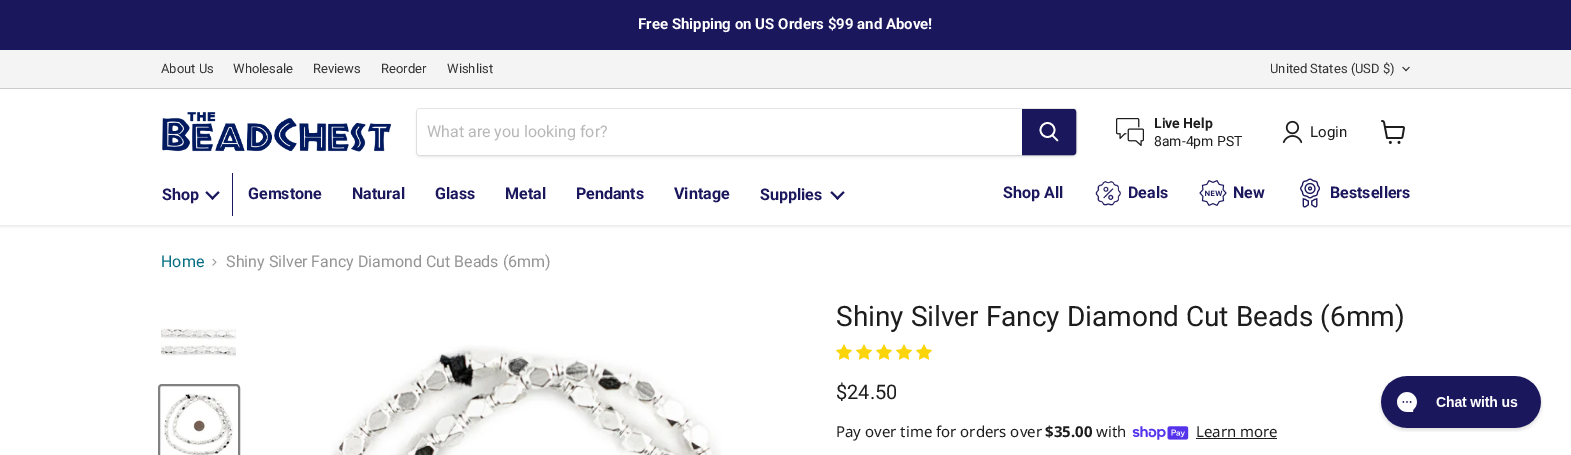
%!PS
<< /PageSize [1571 455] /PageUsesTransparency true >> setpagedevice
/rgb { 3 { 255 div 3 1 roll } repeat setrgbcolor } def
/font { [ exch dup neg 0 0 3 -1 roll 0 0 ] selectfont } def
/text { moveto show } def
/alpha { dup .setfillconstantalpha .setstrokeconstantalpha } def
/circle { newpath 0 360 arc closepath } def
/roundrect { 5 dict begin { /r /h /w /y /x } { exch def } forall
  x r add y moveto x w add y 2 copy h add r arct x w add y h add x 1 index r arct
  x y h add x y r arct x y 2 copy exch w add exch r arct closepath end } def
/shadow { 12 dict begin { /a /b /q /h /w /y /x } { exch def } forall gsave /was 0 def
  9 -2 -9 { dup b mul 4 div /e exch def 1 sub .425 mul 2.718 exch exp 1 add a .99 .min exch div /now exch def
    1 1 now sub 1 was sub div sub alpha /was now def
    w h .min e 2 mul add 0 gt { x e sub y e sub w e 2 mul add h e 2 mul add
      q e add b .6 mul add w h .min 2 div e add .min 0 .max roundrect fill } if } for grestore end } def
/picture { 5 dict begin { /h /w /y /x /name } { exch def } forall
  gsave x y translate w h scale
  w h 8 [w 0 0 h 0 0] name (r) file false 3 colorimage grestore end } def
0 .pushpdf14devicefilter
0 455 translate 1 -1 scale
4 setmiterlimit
255 255 255 rgb
0 0 1571 455 rectfill
27 23 93 rgb
0 0 1571 50 rectfill
gsave
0 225 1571 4 rectclip
128 128 128 rgb
0 90 1571 136 0 2 0.25 shadow
grestore
244 244 244 rgb
0 50 1571 38 rectfill
204 204 204 rgb
0 88 1571 1 rectfill
(img_01.rgb) 1402 66 8 6 picture
(img_02.rgb) 162 112 230 40 picture
128 128 128 rgb
416 110 661 48 4 1.5 0.11 shadow
0.2 alpha
416.5 108.5 660 47 3.5 roundrect stroke
1 alpha
255 255 255 rgb
420 109 moveto 602 0 rlineto 0 46 rlineto -602 0 rlineto -1.5 0 -3 -1.5 -3 -3 rcurveto 0 -40 rlineto 0 -1.5 1.5 -3 3 -3 rcurveto closepath fill
27 23 93 rgb
1022.5 109.5 moveto 50.5 0 rlineto 1.5 0 2.5 1 2.5 2.5 rcurveto 0 40 rlineto 0 1.5 -1 2.5 -2.5 2.5 rcurveto -50.5 0 rlineto closepath gsave fill grestore
stroke
255 255 255 rgb
1.7 setlinewidth
1 setlinecap
1057.5 140.5 moveto -5 -5 rlineto stroke
0 setlinecap
1047.5 130 7 circle stroke
(img_03.rgb) 1116 118 28 28 picture
(img_04.rgb) 1282 120 20 24 picture
(img_05.rgb) 1381 120 24 24 picture
27 23 93 rgb
232 173 1 44 rectfill
255 255 255 rgb
232 216 1 1 rectfill
(img_06.rgb) 205 191 15 9 picture
(img_06.rgb) 830 191 15 9 picture
(img_07.rgb) 1095 181 26 25 picture
(img_08.rgb) 1199 180 28 26 picture
(img_09.rgb) 1300 178 20 30 picture
(img_10.rgb) 212 258 5 8 picture
(img_11.rgb) 161 328 75 29 picture
129 129 129 rgb
2 setlinewidth
159 385 80 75 3 roundrect stroke
(img_12.rgb) 161 393 72 62 picture
(img_13.rgb) 330 345 392 110 picture
(img_14.rgb) 836 344 16 16 picture
(img_14.rgb) 856 344 16 16 picture
(img_14.rgb) 876 344 16 16 picture
(img_14.rgb) 896 344 16 16 picture
(img_14.rgb) 916 344 16 16 picture
(img_15.rgb) 1132 426 57 14 picture
29 29 29 rgb
1196 438 81 1 rectfill
(img_16.rgb) 1379 376 164 56 picture
/Roboto-Bold 15 font
255 255 255 rgb
(Free Shipping on US Orders $99 and Above!) 638 29 text
/Roboto-Regular 13 font
51 51 51 rgb
(About Us) 161 73 text
(Wholesale) 233 73 text
(Reviews) 313 73 text
(Reorder) 381 73 text
(Wishlist) 447 73 text
(United States \(USD $\)) 1270 73 text
/Roboto-Regular 16 font
184 184 184 rgb
(What are you looking for?) 427 137 text
/Roboto-Bold 14 font
29 29 29 rgb
(Live Help) 1154 128 text
/Roboto-Regular 14 font
(8am-4pm PST) 1154 146 text
/Roboto-Regular 15 font
(Login) 1310 137 text
/Roboto-Bold 16 font
27 23 93 rgb
(Shop) 162 200 text
(Gemstone) 248 199 text
(Natural) 352 199 text
(Glass) 435 199 text
(Metal) 505 199 text
(Pendants) 576 199 text
(Vintage) 674 199 text
(Supplies) 760 200 text
(Shop All) 1003 198 text
(Deals) 1128 198 text
(New) 1233 198 text
(Bestsellers) 1330 198 text
/Roboto-Regular 16 font
4 110 130 rgb
(Home) 161 267 text
148 148 148 rgb
(Shiny Silver Fancy Diamond Cut Beads \(6mm\)) 226 267 text
/Roboto-Regular 28 font
29 29 29 rgb
(Shiny Silver Fancy Diamond Cut Beads \(6mm\)) 836 326 text
/Roboto-Regular 20 font
($24.50) 836 399 text
/NotoSans-Regular 15 font
(Pay over time for orders over) 836 437 text
/NotoSans-Bold 15 font
($35.00) 1045 437 text
/NotoSans-Regular 15 font
(with) 1096 437 text
(Learn more) 1196 437 text
.poppdf14devicefilter showpage
